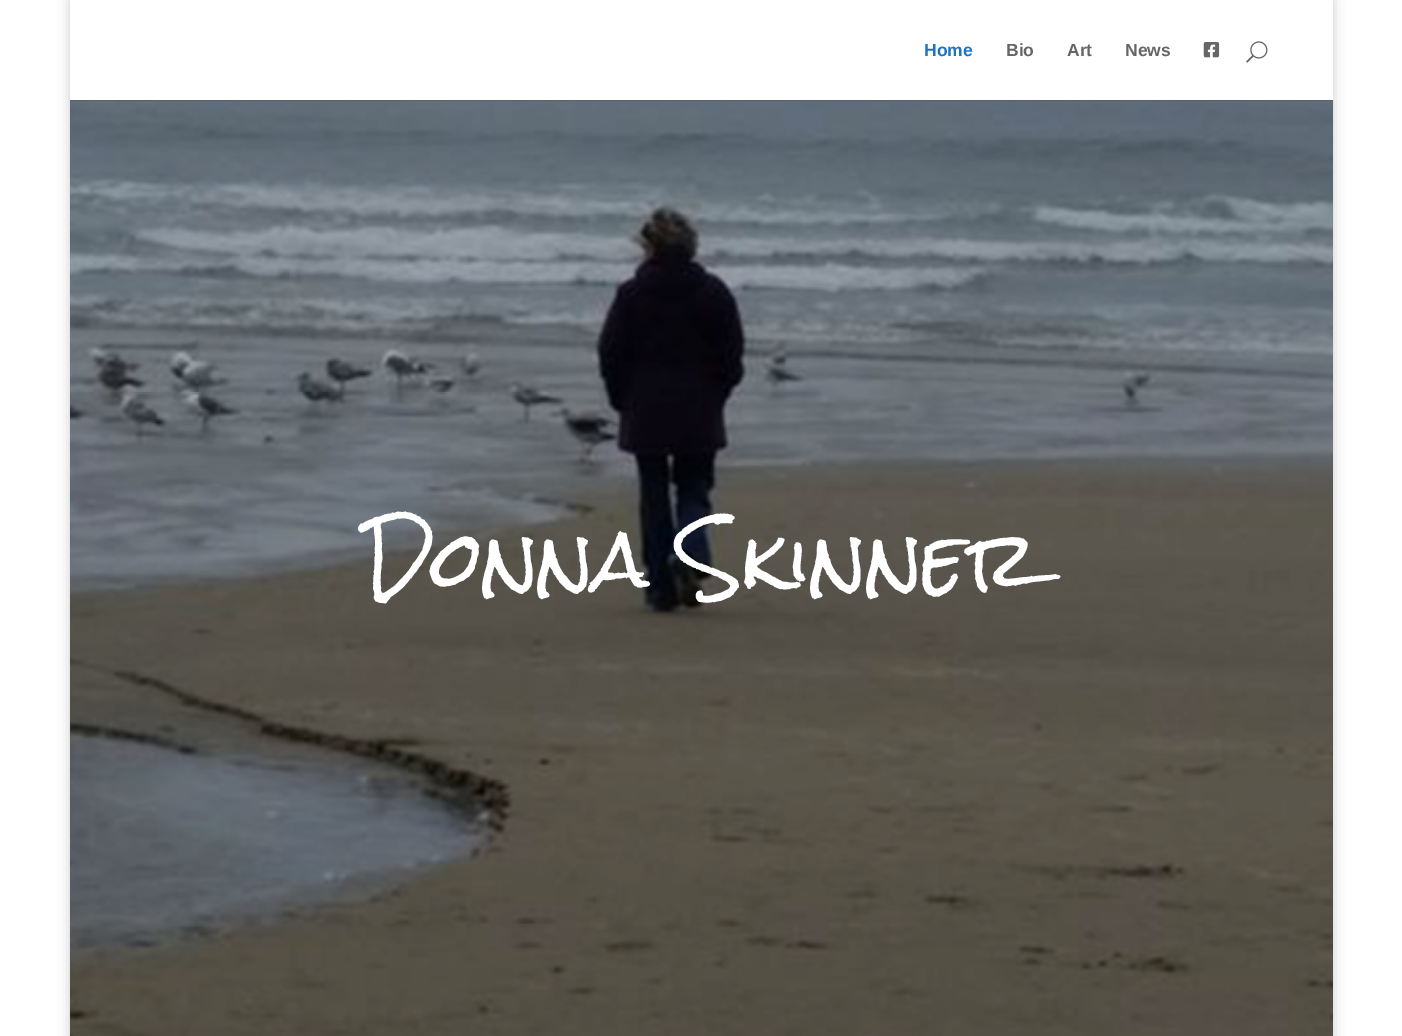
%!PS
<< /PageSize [1402 1036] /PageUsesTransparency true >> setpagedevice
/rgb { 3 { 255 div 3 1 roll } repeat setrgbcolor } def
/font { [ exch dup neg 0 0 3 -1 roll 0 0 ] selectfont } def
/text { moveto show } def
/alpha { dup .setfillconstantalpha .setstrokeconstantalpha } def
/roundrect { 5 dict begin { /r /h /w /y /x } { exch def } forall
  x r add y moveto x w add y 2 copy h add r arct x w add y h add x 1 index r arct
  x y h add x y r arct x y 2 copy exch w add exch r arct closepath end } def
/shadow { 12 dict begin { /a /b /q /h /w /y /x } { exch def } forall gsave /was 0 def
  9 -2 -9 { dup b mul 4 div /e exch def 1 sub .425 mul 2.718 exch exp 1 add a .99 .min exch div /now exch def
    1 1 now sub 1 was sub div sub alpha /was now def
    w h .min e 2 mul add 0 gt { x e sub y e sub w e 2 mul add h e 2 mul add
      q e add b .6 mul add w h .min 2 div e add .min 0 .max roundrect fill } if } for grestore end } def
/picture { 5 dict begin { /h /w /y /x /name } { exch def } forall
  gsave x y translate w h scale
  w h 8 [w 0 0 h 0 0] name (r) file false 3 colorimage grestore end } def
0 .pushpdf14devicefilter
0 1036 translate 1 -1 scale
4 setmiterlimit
255 255 255 rgb
0 0 1402 1036 rectfill
0 0 0 rgb
70 0 1263 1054 0 6 0.2 shadow
(img_03.rgb) 70 100 1263 936 picture
0.1 alpha
70 100 moveto 0 1 rlineto 1263 0 rlineto 0 -100 rlineto -1 0 rlineto 0 99 rlineto closepath fill
1 alpha
255 255 255 rgb
70 0 1263 100 rectfill
(img_01.rgb) 1203 42 17 16 picture
(img_02.rgb) 1246 41 22 22 picture
/LiberationSans-Bold 17.5 font
30 115 190 rgb
(Home) 924 56 text
102 102 102 rgb
(Bio) 1006 56 text
(Art) 1067 56 text
(News) 1125 56 text
/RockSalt-Regular 75 font
255 255 255 rgb
(Donna Skinner) 364 589 text
.poppdf14devicefilter showpage
